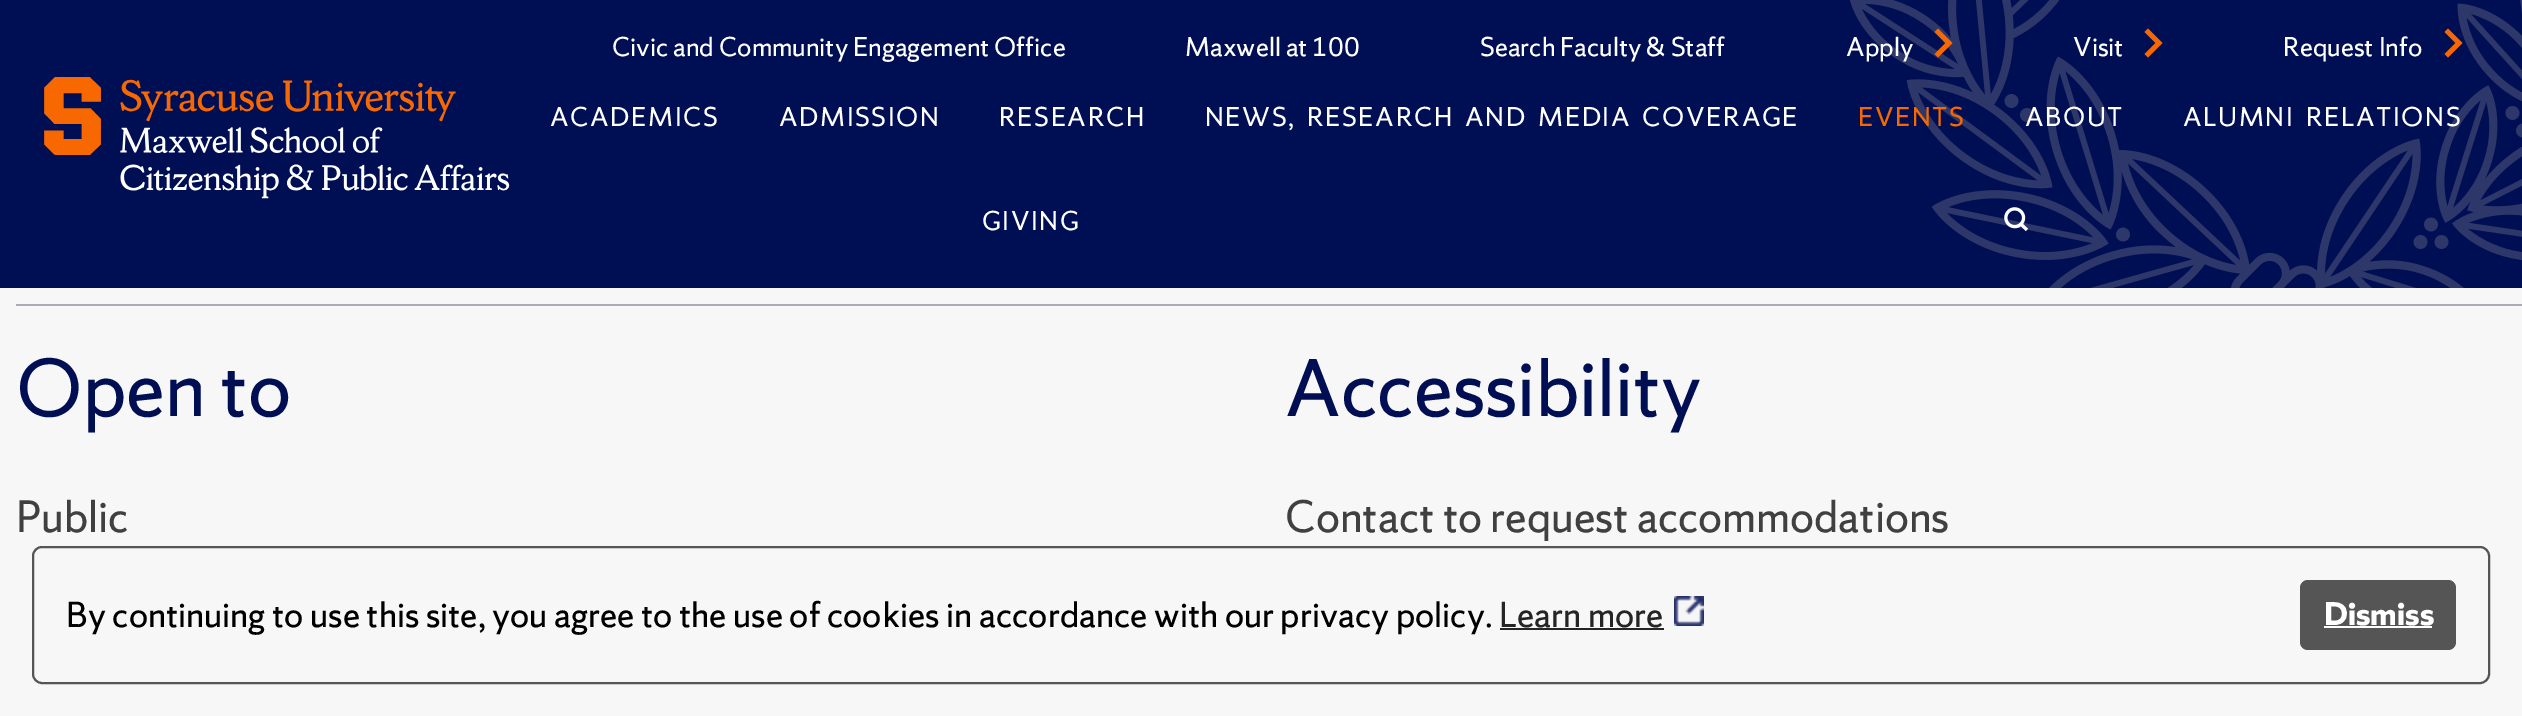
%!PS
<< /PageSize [2522 716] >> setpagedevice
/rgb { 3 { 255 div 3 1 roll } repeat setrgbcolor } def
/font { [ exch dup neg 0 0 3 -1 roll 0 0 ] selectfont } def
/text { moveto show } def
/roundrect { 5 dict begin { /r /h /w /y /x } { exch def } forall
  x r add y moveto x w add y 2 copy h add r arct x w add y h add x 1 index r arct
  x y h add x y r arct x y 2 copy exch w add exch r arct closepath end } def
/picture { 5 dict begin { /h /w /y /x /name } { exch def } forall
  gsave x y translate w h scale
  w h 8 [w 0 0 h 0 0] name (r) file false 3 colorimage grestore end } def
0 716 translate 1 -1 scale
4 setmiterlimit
247 247 248 rgb
0 0 2522 716 rectfill
0 14 84 rgb
0 0 2522 288 rectfill
(img_01.rgb) 1850 0 672 288 picture
247 105 0 rgb
1934.5 32 moveto 11 11 rlineto -11 11 rlineto 3.5 3.5 rlineto 14.5 -14.5 rlineto -14.5 -14.5 rlineto closepath fill
2144.5 32 moveto 11 11 rlineto -11 11 rlineto 3.5 3.5 rlineto 14.5 -14.5 rlineto -14.5 -14.5 rlineto closepath fill
2444.5 32 moveto 11 11 rlineto -11 11 rlineto 3.5 3.5 rlineto 14.5 -14.5 rlineto -14.5 -14.5 rlineto closepath fill
(img_02.rgb) 44 77 466 122 picture
(img_03.rgb) 2004 207 25 25 picture
169 173 179 rgb
16 304 2506 2 rectfill
85 85 85 rgb
2 setlinewidth
33 547 2456 136 9 roundrect stroke
37 37 37 rgb
1500 628 164 2 rectfill
(img_04.rgb) 1674 596 30 30 picture
85 85 85 rgb
2300 580 156 70 8 roundrect fill
255 255 255 rgb
2324 626 108 2 rectfill
/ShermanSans-Regular 24 font
(Civic and Community Engagement Office) 612 56 text
(Maxwell at 100) 1185 56 text
(Search Faculty & Staff) 1480 56 text
(Apply) 1846 56 text
(Visit) 2073 56 text
(Request Info) 2283 56 text
550 126 moveto 1.6 0 (ACADEMICS) ashow
779 126 moveto 1.6 0 (ADMISSION) ashow
999 126 moveto 1.6 0 (RESEARCH) ashow
1205 126 moveto 5 0 32 1.6 0 (NEWS, RESEARCH AND MEDIA COVERAGE) awidthshow
247 105 0 rgb
1858 126 moveto 1.6 0 (EVENTS) ashow
255 255 255 rgb
2025 126 moveto 1.6 0 (ABOUT) ashow
2183 126 moveto 5 0 32 1.6 0 (ALUMNI RELATIONS) awidthshow
982 230 moveto 1.6 0 (GIVING) ashow
/ShermanSans-Regular 72 font
0 14 84 rgb
(Open to) 16 416 text
/ShermanSans-Regular 40 font
64 64 64 rgb
(Public) 16 532 text
/ShermanSans-Regular 72 font
0 14 84 rgb
(Accessibility) 1285 416 text
/ShermanSans-Regular 40 font
64 64 64 rgb
(Contact to request accommodations) 1285 532 text
/ShermanSans-Regular 32 font
0 0 0 rgb
(By continuing to use this site, you agree to the use of cookies in accordance with our privacy policy.) 66 627 text
37 37 37 rgb
(Learn more) 1499 627 text
/ShermanSans-Bold 29 font
255 255 255 rgb
(Dismiss) 2324 625 text
showpage
